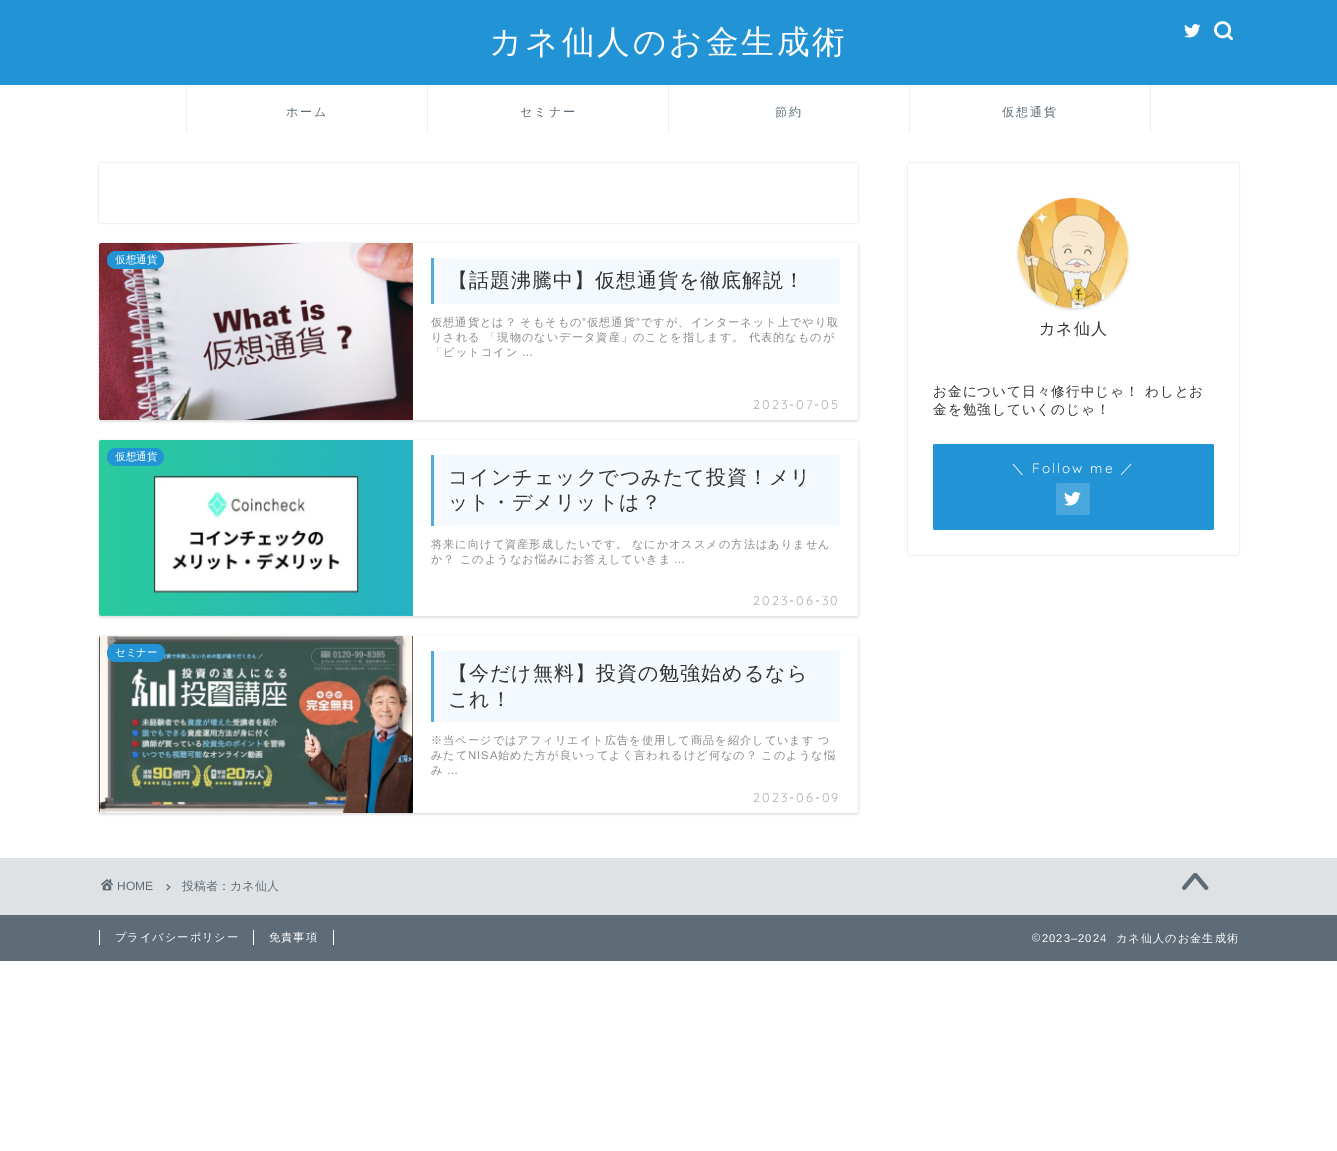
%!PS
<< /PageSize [1337 1151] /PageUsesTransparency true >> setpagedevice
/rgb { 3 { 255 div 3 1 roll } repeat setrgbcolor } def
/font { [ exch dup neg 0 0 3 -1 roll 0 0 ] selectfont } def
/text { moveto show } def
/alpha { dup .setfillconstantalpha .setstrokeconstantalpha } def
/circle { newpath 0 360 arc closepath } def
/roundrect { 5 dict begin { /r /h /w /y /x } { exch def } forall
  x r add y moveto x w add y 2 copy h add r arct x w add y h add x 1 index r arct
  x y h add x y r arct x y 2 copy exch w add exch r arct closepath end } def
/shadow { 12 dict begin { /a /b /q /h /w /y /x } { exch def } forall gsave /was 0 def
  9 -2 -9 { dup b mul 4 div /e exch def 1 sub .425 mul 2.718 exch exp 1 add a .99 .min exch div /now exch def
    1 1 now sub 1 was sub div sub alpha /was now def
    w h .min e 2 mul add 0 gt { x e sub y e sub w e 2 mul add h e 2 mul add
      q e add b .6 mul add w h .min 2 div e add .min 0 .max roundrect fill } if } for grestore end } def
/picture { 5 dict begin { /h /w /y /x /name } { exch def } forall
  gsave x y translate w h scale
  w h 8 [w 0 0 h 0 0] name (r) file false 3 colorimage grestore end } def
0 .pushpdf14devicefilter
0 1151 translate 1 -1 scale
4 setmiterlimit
255 255 255 rgb
0 0 1337 1151 rectfill
34 148 214 rgb
0 0 1337 85 rectfill
(img_01.rgb) 1184 24 17 14 picture
(img_02.rgb) 1214 21 19 20 picture
239 239 239 rgb
186 133 moveto 0 -48 rlineto 1 2 rlineto 0 46 rlineto closepath fill
427 133 moveto 0 -48 rlineto 1 2 rlineto 0 46 rlineto closepath fill
668 133 moveto 0 -48 rlineto 1 2 rlineto 0 46 rlineto closepath fill
1151 85 moveto 0 48 rlineto -1 0 rlineto 0 -46 rlineto closepath fill
909 133 moveto 0 -48 rlineto 1 2 rlineto 0 46 rlineto closepath fill
0 0 0 rgb
99 163 759 60 2 1 0.18 shadow
255 255 255 rgb
99 163 759 60 2 roundrect fill
0 0 0 rgb
99 244 759 177 2 1.5 0.18 shadow
255 255 255 rgb
99 243 759 177 2 roundrect fill
(img_03.rgb) 99 243 314 177 picture
34 148 214 rgb
107 251 57 18 9 roundrect fill
243 249 253 rgb
434 258 406 46 rectfill
85 168 220 rgb
431 258 3 46 rectfill
0 0 0 rgb
99 441 759 176 2 1.5 0.18 shadow
255 255 255 rgb
99 440 759 176 2 roundrect fill
(img_04.rgb) 99 440 314 176 picture
34 148 214 rgb
107 448 57 18 9 roundrect fill
243 249 253 rgb
434 455 406 71 rectfill
85 168 220 rgb
431 455 3 71 rectfill
0 0 0 rgb
99 637 759 177 2 1.5 0.18 shadow
255 255 255 rgb
99 636 759 177 2 roundrect fill
(img_05.rgb) 99 636 314 177 picture
34 148 214 rgb
107 644 58 18 9 roundrect fill
243 249 253 rgb
434 651 406 71 rectfill
85 168 220 rgb
431 651 3 71 rectfill
0 0 0 rgb
908 163 331 392 2 1 0.18 shadow
255 255 255 rgb
908 163 331 392 2 roundrect fill
0 0 0 rgb
1018 199 110 110 55 1.5 0.18 shadow
255 255 255 rgb
1073 253 55 circle fill
(img_06.rgb) 1018 198 110 110 picture
34 148 214 rgb
933 444 281 86 2 roundrect fill
74 167 221 rgb
1056 483 34 32 2 roundrect fill
(img_07.rgb) 1064 491 17 15 picture
223 226 228 rgb
0 858 1337 57 rectfill
(img_08.rgb) 101 879 12 12 picture
(img_09.rgb) 166 884 5 7 picture
(img_10.rgb) 1182 872 27 18 picture
94 108 119 rgb
0 915 1337 46 rectfill
255 255 255 rgb
253 930 1 15 rectfill
99 930 1 15 rectfill
333 930 1 15 rectfill
(img_11.rgb) 1032 933 8 9 picture
/WenQuanYiZenHei-Medium 32.6 font
489 53 moveto 3 0 (カネ仙人のお金生成術) ashow
/WenQuanYiZenHei-Medium 12 font
94 108 119 rgb
286 116 moveto 2 0 (ホーム) ashow
520 116 moveto 2 0 (セミナー) ashow
775 116 moveto 2 0 (節約) ashow
1002 116 moveto 2 0 (仮想通貨) ashow
/WenQuanYiZenHei-Medium 10.5 font
255 255 255 rgb
(仮想通貨) 115 263 text
/WenQuanYiZenHei-Medium 20 font
51 51 51 rgb
448 287 moveto 1 0 (【話題沸騰中】仮想通貨を徹底解説！) ashow
/WenQuanYiZenHei-Medium 11.2 font
136 136 136 rgb
431 326 moveto -1 0 32 1 0 (仮想通貨とは？ そもそもの) awidthshow
/LiberationSans-Regular 11.2 font
582 326 moveto 1 0 (”) ashow
/WenQuanYiZenHei-Medium 11.2 font
587 326 moveto 1 0 (仮想通貨) ashow
/LiberationSans-Regular 11.2 font
636 326 moveto 1 0 (”) ashow
/WenQuanYiZenHei-Medium 11.2 font
641 326 moveto 1 0 (ですが、インターネット上でやり取) ashow
431 341 moveto 1 0 (りされる 「現物のないデータ資産」のことを指します。 代表的なものが) ashow
431 356 moveto 1 0 (「ビットコイン) ashow
/LiberationSans-Regular 11.2 font
522 356 moveto 1 0 (…) ashow
/Quicksand-Light 12.75 font
170 170 170 rgb
753 409 moveto 2 0 (2023-07-05) ashow
/WenQuanYiZenHei-Medium 10.5 font
255 255 255 rgb
(仮想通貨) 115 460 text
/WenQuanYiZenHei-Medium 20 font
51 51 51 rgb
448 484 moveto 1 0 (コインチェックでつみたて投資！メリ) ashow
448 509 moveto 1 0 (ット・デメリットは？) ashow
/WenQuanYiZenHei-Medium 11.2 font
136 136 136 rgb
431 548 moveto -1 0 32 1 0 (将来に向けて資産形成したいです。 なにかオススメの方法はありません) awidthshow
431 563 moveto 1 0 (か？ このようなお悩みにお答えしていきま) ashow
/LiberationSans-Regular 11.2 font
674 563 moveto 1 0 (…) ashow
/Quicksand-Light 12.75 font
170 170 170 rgb
753 605 moveto 2 0 (2023-06-30) ashow
/WenQuanYiZenHei-Medium 10.5 font
255 255 255 rgb
(セミナー) 115 656 text
/WenQuanYiZenHei-Medium 20 font
51 51 51 rgb
448 680 moveto 1 0 (【今だけ無料】投資の勉強始めるなら) ashow
448 706 moveto 1 0 (これ！) ashow
/WenQuanYiZenHei-Medium 11.2 font
136 136 136 rgb
431 744 moveto -1 0 32 1 0 (※当ページではアフィリエイト広告を使用して商品を紹介しています つ) awidthshow
431 759 moveto 1 0 (みたて) ashow
/LiberationSans-Regular 11.2 font
468 759 moveto 1 0 (NISA) ashow
/WenQuanYiZenHei-Medium 11.2 font
498 759 moveto -1 0 32 1 0 (始めた方が良いってよく言われるけど何なの？ このような悩) awidthshow
431 774 moveto 1 0 (み) ashow
/LiberationSans-Regular 11.2 font
447 774 moveto 1 0 (…) ashow
/Quicksand-Light 12.75 font
170 170 170 rgb
753 802 moveto 2 0 (2023-06-09) ashow
/WenQuanYiZenHei-Medium 16 font
51 51 51 rgb
1039 334 moveto 1 0 (カネ仙人) ashow
/WenQuanYiZenHei-Medium 13.6 font
933 396 moveto 1 0 (お金について日々修行中じゃ！ わしとお) ashow
933 414 moveto 1 0 (金を勉強していくのじゃ！) ashow
255 255 255 rgb
1011 473 moveto 2 0 (＼) ashow
/Quicksand-Light 13.6 font
1032 473 moveto 2 0 (Follow me) ashow
/WenQuanYiZenHei-Medium 13.6 font
1120 473 moveto 2 0 (／) ashow
/LiberationSans-Regular 12 font
94 108 119 rgb
(HOME) 117 890 text
/WenQuanYiZenHei-Medium 12 font
(投稿者：カネ仙人) 182 890 text
/WenQuanYiZenHei-Medium 11.2 font
255 255 255 rgb
115 941 moveto 1 0 (プライバシーポリシー) ashow
269 941 moveto 1 0 (免責事項) ashow
/LiberationSans-Regular 11.2 font
1042 942 moveto 1 0 (2023–2024) ashow
/WenQuanYiZenHei-Medium 11.2 font
1116 942 moveto 1 0 (カネ仙人のお金生成術) ashow
.poppdf14devicefilter showpage
